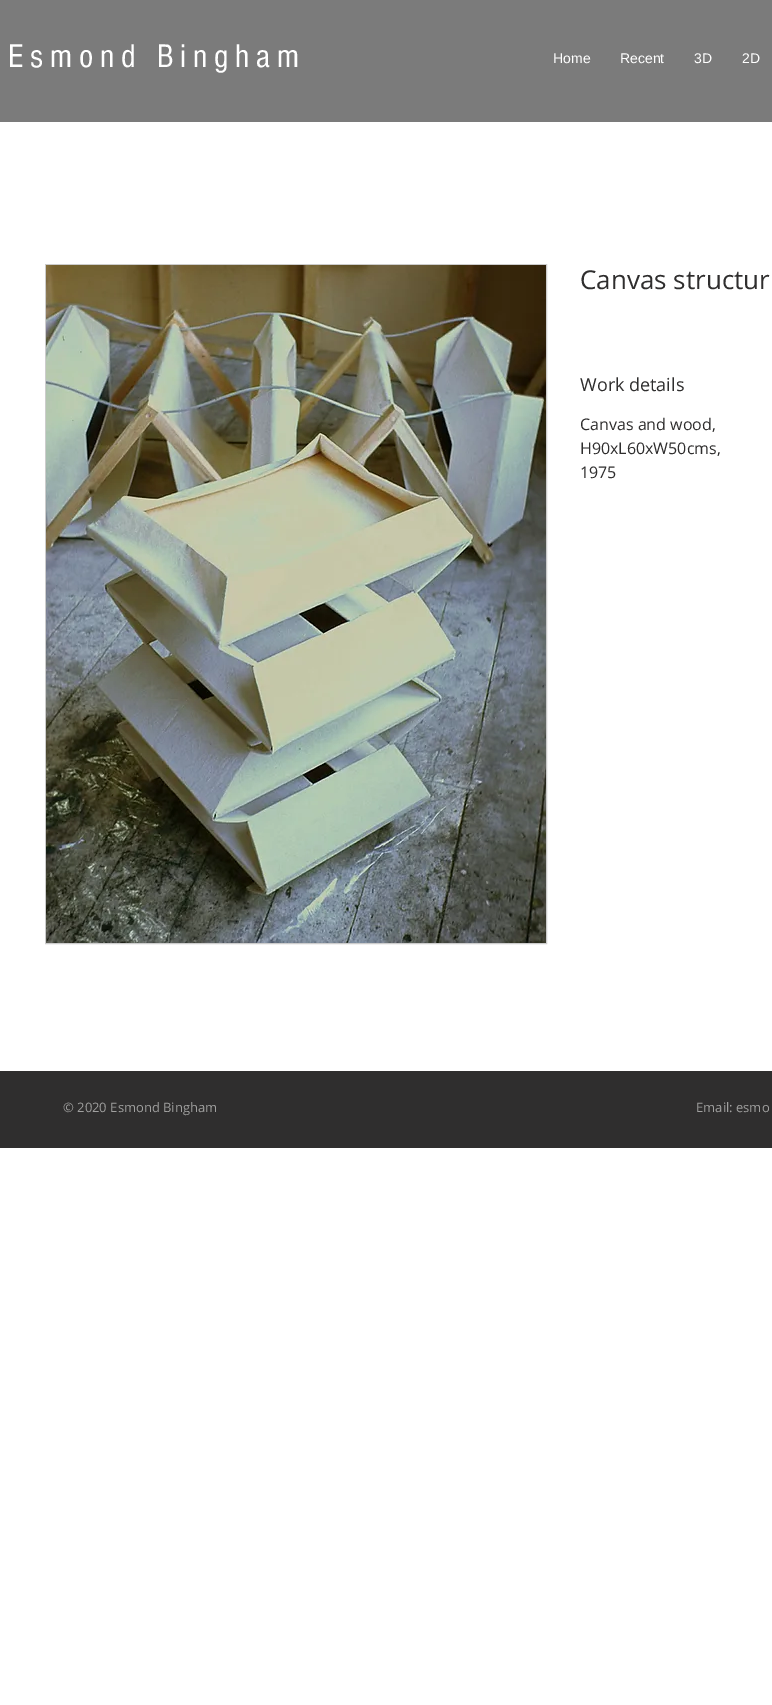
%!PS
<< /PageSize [772 1705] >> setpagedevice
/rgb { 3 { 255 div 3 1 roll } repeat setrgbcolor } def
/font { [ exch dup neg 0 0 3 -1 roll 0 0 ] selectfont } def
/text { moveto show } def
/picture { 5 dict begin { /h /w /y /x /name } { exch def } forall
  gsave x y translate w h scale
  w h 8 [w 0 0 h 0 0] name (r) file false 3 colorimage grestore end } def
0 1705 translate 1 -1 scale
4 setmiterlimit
255 255 255 rgb
0 0 772 1705 rectfill
123 123 123 rgb
0 0 772 122 rectfill
204 204 204 rgb
45.5 264.5 501 679 rectstroke
(img_01.rgb) 46 265 500 678 picture
47 46 46 rgb
0 1071 772 77 rectfill
/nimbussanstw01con-Regular 34 font
255 255 255 rgb
8 67 moveto 6.75 0 (Esmond Bingham) ashow
/LiberationSans-Regular 14 font
(Home) 553 63 text
(Recent) 620 63 text
(3D) 694 63 text
(2D) 742 63 text
/OpenSans-Regular 26 font
47 46 46 rgb
(Canvas structur) 580 289 text
/OpenSans-Regular 18 font
(Work details) 580 391 text
/OpenSans-Regular 16 font
(Canvas and wood,) 580 430 text
(H90xL60xW50cms,) 580 454 text
(1975) 580 478 text
/OpenSans-Regular 13 font
160 160 159 rgb
(© 2020 Esmond Bingham) 63 1112 text
(Email: esmo) 696 1112 text
showpage
